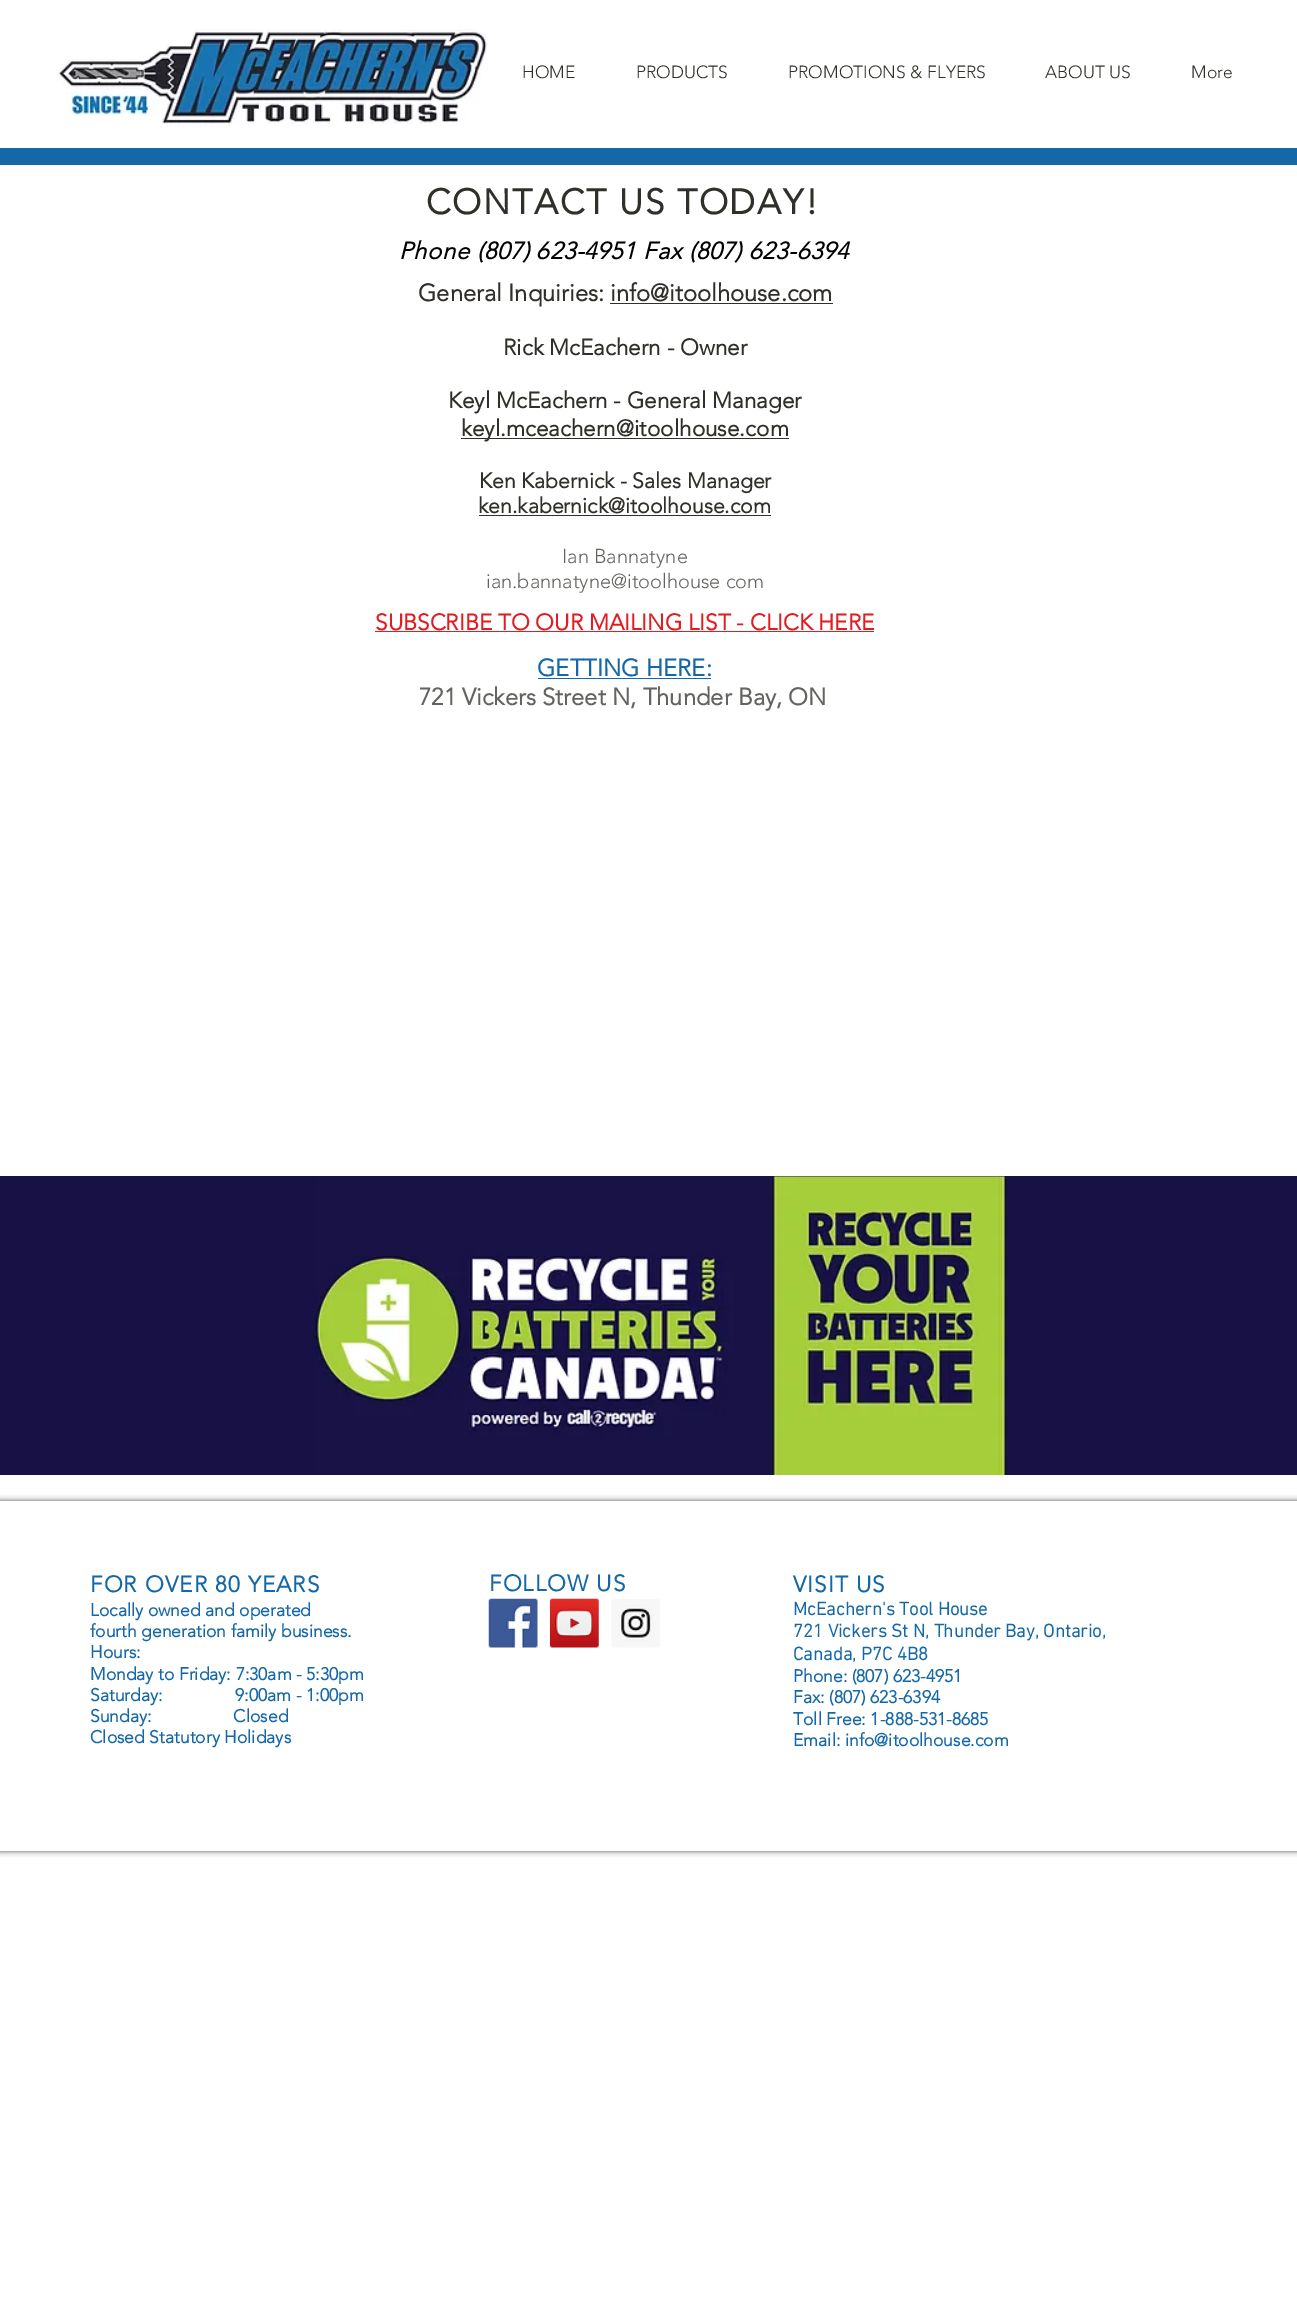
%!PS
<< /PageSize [1297 2304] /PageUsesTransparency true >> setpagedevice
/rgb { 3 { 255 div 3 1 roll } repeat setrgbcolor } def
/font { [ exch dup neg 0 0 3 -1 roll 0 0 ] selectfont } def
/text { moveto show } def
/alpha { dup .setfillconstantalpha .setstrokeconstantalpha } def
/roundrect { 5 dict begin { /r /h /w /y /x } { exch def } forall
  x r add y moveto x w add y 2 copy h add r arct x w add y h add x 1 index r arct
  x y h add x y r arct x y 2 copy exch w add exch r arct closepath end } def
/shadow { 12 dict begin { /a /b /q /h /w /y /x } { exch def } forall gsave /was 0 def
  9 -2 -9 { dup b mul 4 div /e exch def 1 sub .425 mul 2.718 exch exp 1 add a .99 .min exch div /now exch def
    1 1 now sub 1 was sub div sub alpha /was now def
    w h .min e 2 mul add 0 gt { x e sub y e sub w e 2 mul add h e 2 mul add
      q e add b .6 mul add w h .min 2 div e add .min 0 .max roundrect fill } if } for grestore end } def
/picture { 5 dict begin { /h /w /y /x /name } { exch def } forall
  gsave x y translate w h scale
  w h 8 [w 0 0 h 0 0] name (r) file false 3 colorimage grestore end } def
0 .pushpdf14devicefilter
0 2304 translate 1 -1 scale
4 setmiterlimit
255 255 255 rgb
0 0 1297 2304 rectfill
(img_01.rgb) 56 29 432 97 picture
20 104 168 rgb
0 148 1297 17 rectfill
48 47 41 rgb
610 303 223 1 rectfill
461 438 328 1 rectfill
479 515 292 1 rectfill
226 28 33 rgb
375 631 499 1 rectfill
20 104 168 rgb
538 678 173 1 rectfill
24 17 69 rgb
0 1176 1297 299 rectfill
(img_02.rgb) 314 1176 694 299 picture
gsave
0 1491 moveto 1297 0 rlineto 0 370 rlineto -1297 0 rlineto closepath 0 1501 moveto 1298 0 rlineto 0 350 rlineto -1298 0 rlineto closepath eoclip newpath
0 0 0 rgb
0 1501 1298 350 0 3 0.7 shadow
grestore
0.6 alpha
255 255 255 rgb
0 1501 1297 1 rectfill
1 alpha
(img_03.rgb) 488 1598 50 50 picture
(img_04.rgb) 550 1598 49 50 picture
(img_05.rgb) 611 1599 49 49 picture
/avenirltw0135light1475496-Light 17.5 font
48 47 41 rgb
(HOME) 522 78 text
(PRODUCTS) 636 78 text
(PROMOTIONS & FLYERS) 788 78 text
(ABOUT US) 1045 78 text
(More) 1191 78 text
/avenirltw0135light1475496-Bold 35 font
426 214 moveto 1.75 0 (CONTACT US TODAY!) ashow
/avenirltw0135light1475496-BoldItalic 23.75 font
0 0 0 rgb
399 259 moveto 0.7 0 (Phone \(807\) 623-4951 Fax \(807\) 623-6394) ashow
/avenirltw0135light1475496-Bold 23.75 font
48 47 41 rgb
(General Inquiries: info@itoolhouse.com) 418 301 text
/avenirltw0135light1475496-Bold 22.5 font
(Rick McEachern - Owner) 503 355 text
(Keyl McEachern - General Manager) 448 408 text
(keyl.mceachern@itoolhouse.com) 461 436 text
/avenirltw0135light1475496-Bold 21.25 font
(Ken Kabernick - Sales Manager) 479 488 text
(ken.kabernick@itoolhouse.com) 478 513 text
/avenirltw0135light1475496-Light 20 font
100 99 95 rgb
(Ian Bannatyne) 562 563 text
(ian.bannatyne@itoolhouse com) 486 588 text
/avenirltw0135light1475496-Bold 22.5 font
226 28 33 rgb
(SUBSCRIBE TO OUR MAILING LIST - CLICK HERE) 375 630 text
/avenirltw0135light1475496-Bold 23.75 font
20 104 168 rgb
(GETTING HERE:) 537 676 text
100 99 95 rgb
(721 Vickers Street N, Thunder Bay, ON) 419 705 text
/avenirltw0135light1475496-Bold 22.5 font
20 104 168 rgb
90 1592 moveto 1.1 0 (FOR OVER 80 YEARS) ashow
489 1591 moveto 1.1 0 (FOLLOW US) ashow
793 1592 moveto 1.1 0 (VISIT US) ashow
/avenirltw0135light1475496-Bold 17.5 font
(Locally owned and operated) 90 1616 text
(fourth generation family business.) 90 1637 text
(Hours:) 90 1658 text
(Monday to Friday: 7:30am - 5:30pm) 90 1680 text
(Saturday:                9:00am - 1:00pm) 90 1701 text
(Sunday:                  Closed) 90 1722 text
(Closed Statutory Holidays) 90 1743 text
/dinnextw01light-Bold 18.75 font
(McEachern's Tool House) 793 1615 text
(721 Vickers St N, Thunder Bay, Ontario,) 793 1637 text
(Canada, P7C 4B8) 793 1660 text
/avenirltw0135light1475496-Bold 17.5 font
(Phone: \(807\) 623-4951) 793 1682 text
(Fax: \(807\) 623-6394) 793 1703 text
(Toll Free: 1-888-531-8685) 793 1725 text
(Email: info@itoolhouse.com) 793 1746 text
.poppdf14devicefilter showpage
